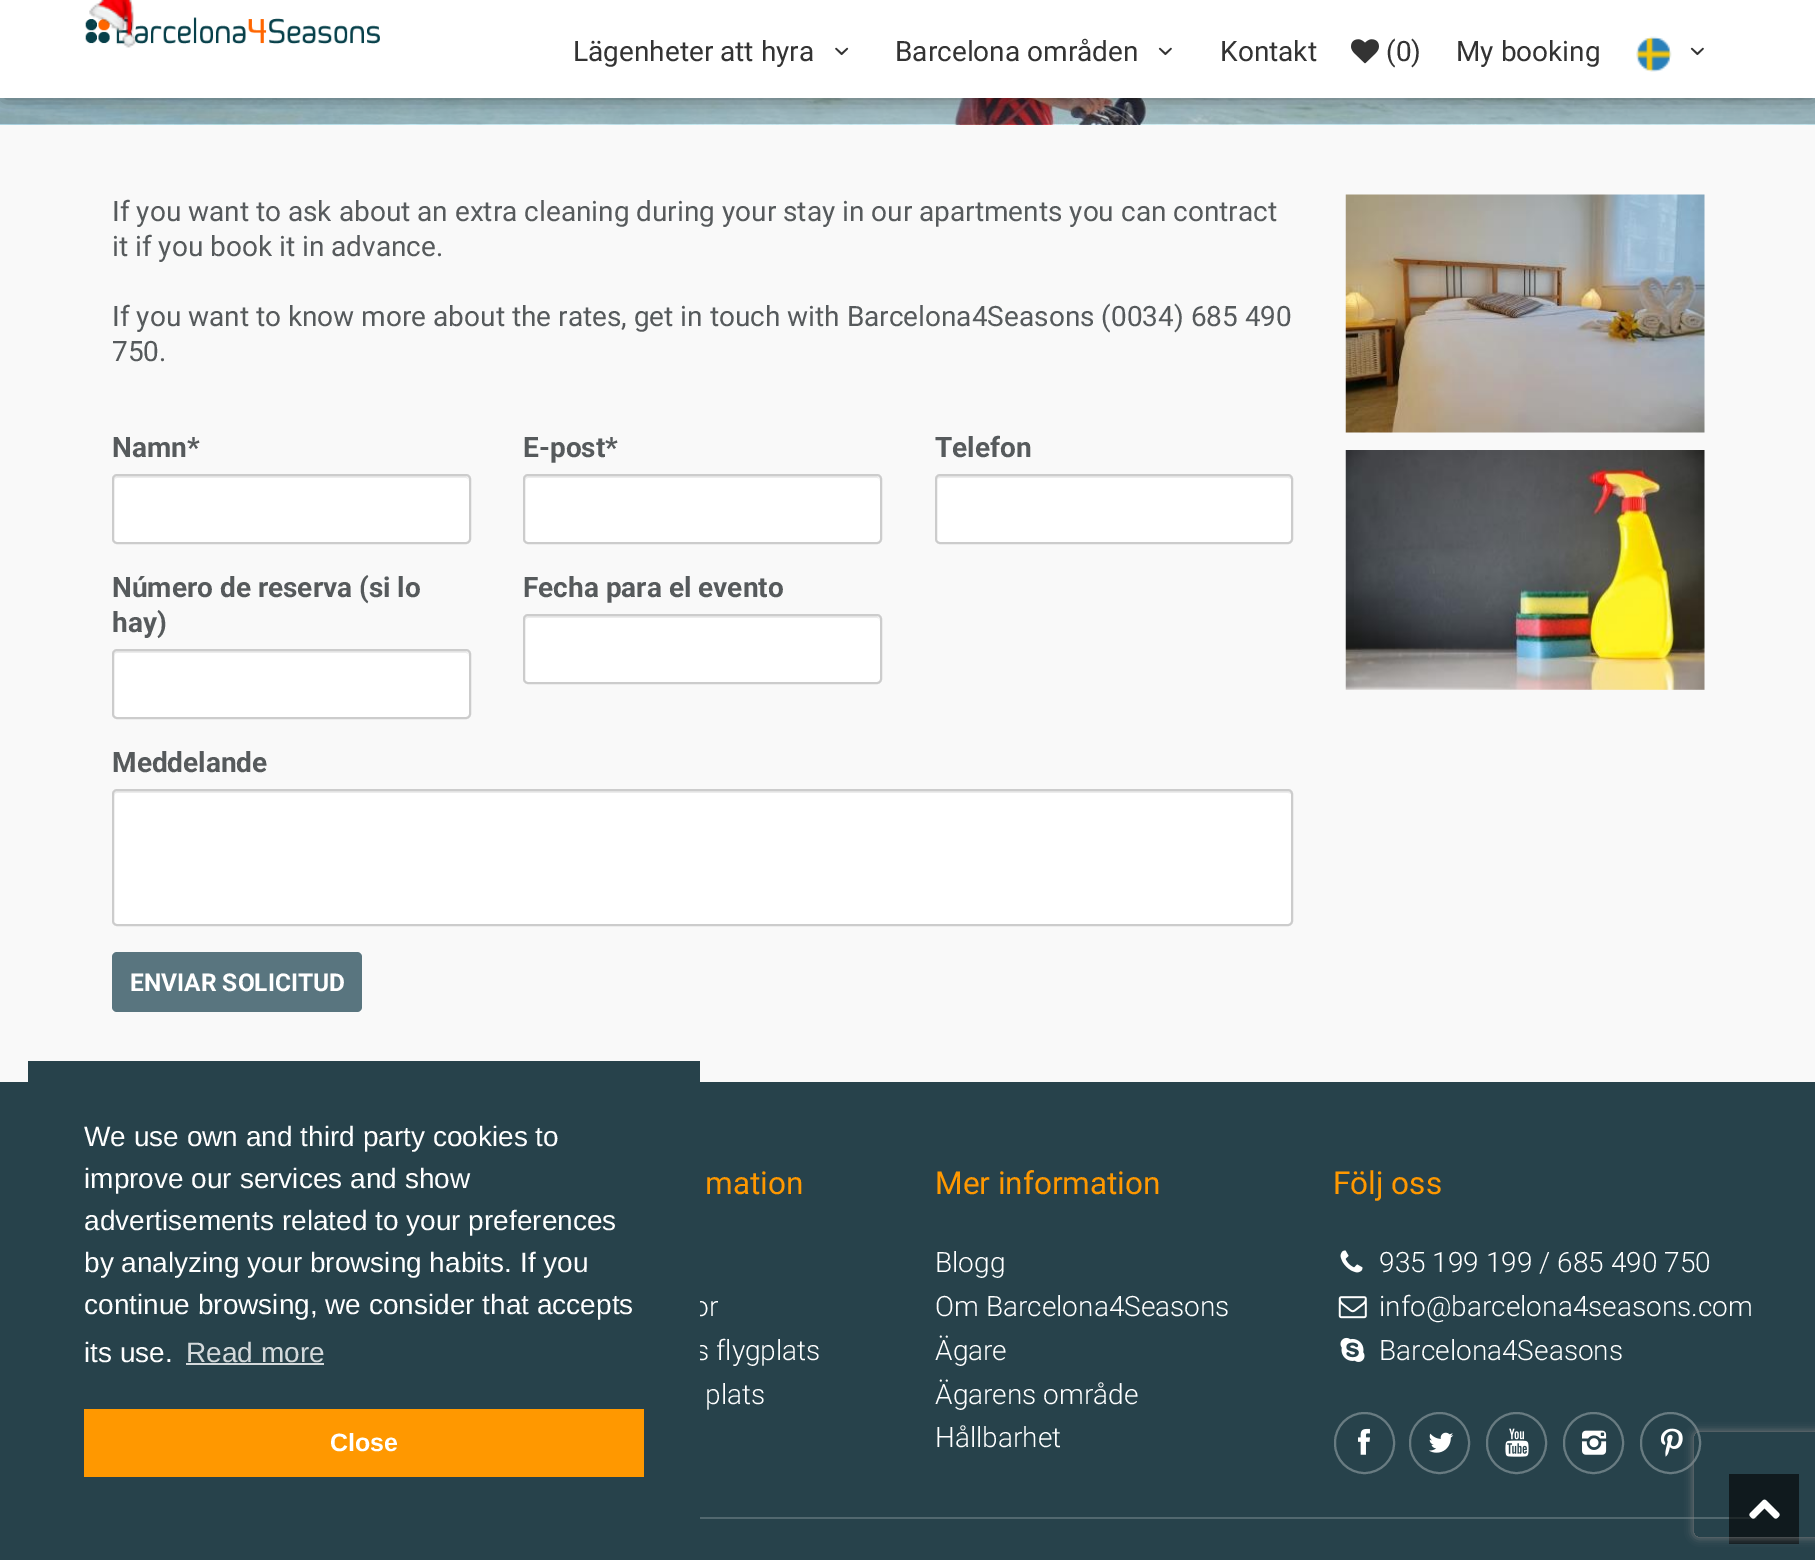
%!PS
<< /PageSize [1815 1560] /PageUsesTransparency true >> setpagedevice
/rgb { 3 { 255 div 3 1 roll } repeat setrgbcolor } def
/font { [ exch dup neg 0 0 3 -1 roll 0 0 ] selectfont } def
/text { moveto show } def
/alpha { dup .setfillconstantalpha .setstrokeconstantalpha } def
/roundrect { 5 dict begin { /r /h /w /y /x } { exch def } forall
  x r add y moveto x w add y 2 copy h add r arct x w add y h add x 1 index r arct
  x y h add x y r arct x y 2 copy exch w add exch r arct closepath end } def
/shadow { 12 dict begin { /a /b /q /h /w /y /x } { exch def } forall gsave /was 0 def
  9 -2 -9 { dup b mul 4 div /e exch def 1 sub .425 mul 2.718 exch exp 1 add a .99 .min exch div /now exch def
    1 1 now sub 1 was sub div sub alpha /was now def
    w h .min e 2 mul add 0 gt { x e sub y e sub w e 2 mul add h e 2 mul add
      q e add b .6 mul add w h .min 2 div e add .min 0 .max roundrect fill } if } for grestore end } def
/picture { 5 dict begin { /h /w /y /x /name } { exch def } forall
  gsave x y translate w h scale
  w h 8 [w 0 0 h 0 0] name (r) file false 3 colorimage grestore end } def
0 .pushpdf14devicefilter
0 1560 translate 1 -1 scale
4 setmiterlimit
249 249 249 rgb
0 0 1815 1560 rectfill
(img_18.rgb) 0 98 1815 27 picture
0 0 0 rgb
4 7 1809 91 0 9 0.41 shadow
255 255 255 rgb
0 0 1815 98 rectfill
(img_02.rgb) 85 17 295 27 picture
(img_01.rgb) 89 0 48 48 picture
(img_03.rgb) 835 47 14 9 picture
(img_04.rgb) 1158 47 14 9 picture
(img_05.rgb) 1351 39 28 25 picture
(img_06.rgb) 1636 36 36 36 picture
(img_04.rgb) 1690 47 14 9 picture
112 474 359 70 5 roundrect fill
236 236 236 rgb
117 478 moveto 349 0 rlineto 1 0 3 1 3 3 rcurveto -1 -3 rlineto -2 -2 rlineto -348 0 rlineto -3 0 -4 2 -4 5 rcurveto 0 -2 1 -3 3 -3 rcurveto closepath fill
204 204 204 rgb
2 setlinewidth
113 475 357 68 4 roundrect stroke
255 255 255 rgb
523 474 359 70 5 roundrect fill
236 236 236 rgb
528 478 moveto 349 0 rlineto 2 0 3 1 3 3 rcurveto -1 -3 rlineto -2 -2 rlineto -348 0 rlineto -3 0 -4 2 -4 5 rcurveto 0 -2 2 -3 3 -3 rcurveto closepath fill
204 204 204 rgb
524 475 357 68 4 roundrect stroke
255 255 255 rgb
935 474 358 70 5 roundrect fill
236 236 236 rgb
940 478 moveto 348 0 rlineto 2 0 4 1 4 3 rcurveto 0 -3 -1 -5 -4 -5 rcurveto -349 0 rlineto -2 2 rlineto -1 3 rlineto 0 -2 2 -3 4 -3 rcurveto closepath fill
204 204 204 rgb
936 475 356 68 4 roundrect stroke
255 255 255 rgb
112 649 359 70 5 roundrect fill
236 236 236 rgb
117 653 moveto 349 0 rlineto 1 0 3 1 3 3 rcurveto -1 -3 rlineto -2 -2 rlineto -348 0 rlineto -3 0 -4 2 -4 5 rcurveto 0 -2 1 -3 3 -3 rcurveto closepath fill
204 204 204 rgb
113 650 357 68 4 roundrect stroke
255 255 255 rgb
523 614 359 70 5 roundrect fill
236 236 236 rgb
528 618 moveto 349 0 rlineto 2 0 3 1 3 3 rcurveto -1 -3 rlineto -2 -2 rlineto -348 0 rlineto -3 0 -4 2 -4 5 rcurveto 0 -2 2 -3 3 -3 rcurveto closepath fill
204 204 204 rgb
524 615 357 68 4 roundrect stroke
255 255 255 rgb
112 789 1181 137 5 roundrect fill
236 236 236 rgb
117 793 moveto 1171 0 rlineto 2 0 4 1 4 3 rcurveto 0 -3 -1 -5 -4 -5 rcurveto -1170 0 rlineto -3 0 -4 2 -4 5 rcurveto 0 -2 1 -3 3 -3 rcurveto closepath fill
204 204 204 rgb
113 790 1179 135 4 roundrect stroke
89 117 127 rgb
112 952 250 60 5 roundrect fill
(img_07.rgb) 1345 194 360 239 picture
(img_08.rgb) 1345 450 360 240 picture
39 66 75 rgb
0 1082 1815 478 rectfill
16 26 30 rgb
1729 1474 70 70 rectfill
(img_09.rgb) 1340 1250 23 23 picture
(img_10.rgb) 1338 1296 29 23 picture
(img_11.rgb) 1340 1337 25 25 picture
104 123 129 rgb
1335 1413 59 60 29.5 roundrect stroke
(img_12.rgb) 1358 1428 12 27 picture
1410 1413 59 60 29.5 roundrect stroke
(img_13.rgb) 1429 1432 25 21 picture
1487 1413 59 60 29.5 roundrect stroke
(img_14.rgb) 1505 1428 24 29 picture
1564 1413 59 60 29.5 roundrect stroke
(img_15.rgb) 1582 1430 25 25 picture
1641 1413 59 60 29.5 roundrect stroke
(img_16.rgb) 1660 1428 23 29 picture
82 104 111 rgb
700 1517 1029 2 rectfill
33 42 44 rgb
1729 1517 28 2 rectfill
(img_17.rgb) 1749 1499 31 20 picture
212 217 219 rgb
186 1363 138 2 rectfill
255 152 0 rgb
84 1409 560 68 rectfill
gsave
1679 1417 moveto 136 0 rlineto 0 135 rlineto -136 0 rlineto closepath 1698 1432 moveto 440 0 rlineto 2 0 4 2 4 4 rcurveto 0 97 rlineto 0 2 -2 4 -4 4 rcurveto -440 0 rlineto -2 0 -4 -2 -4 -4 rcurveto 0 -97 rlineto 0 -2 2 -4 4 -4 rcurveto closepath eoclip newpath
128 128 128 rgb
1694 1432 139 105 4 4.5 1 shadow
grestore
/Roboto-Regular 28 font
51 51 51 rgb
(Lägenheter att hyra) 573 61 text
(Barcelona områden) 895 61 text
(Kontakt) 1220 61 text
(\(0\)) 1386 61 text
(My booking) 1456 61 text
86 90 92 rgb
(If you want to ask about an extra cleaning during your stay in our apartments you can contract) 112 221 text
(it if you book it in advance.) 112 256 text
(If you want to know more about the rates, get in touch with Barcelona4Seasons \(0034\) 685 490) 112 326 text
(750.) 112 361 text
/Roboto-Bold 28 font
(Namn*) 112 457 text
(E-post*) 523 457 text
(Telefon) 935 457 text
(Número de reserva \(si lo) 112 597 text
(hay\)) 112 632 text
(Fecha para el evento) 523 597 text
(Meddelande) 112 772 text
/Roboto-Bold 24.5 font
255 255 255 rgb
(ENVIAR SOLICITUD) 130 991 text
/Roboto-Regular 31.5 font
255 152 0 rgb
(mation) 705 1194 text
/Roboto-Light 28 font
255 255 255 rgb
(or) 693 1316 text
(s flygplats) 695 1360 text
(plats) 705 1404 text
/Roboto-Regular 31.5 font
255 152 0 rgb
(Mer information) 935 1194 text
/Roboto-Light 28 font
255 255 255 rgb
(Blogg) 935 1272 text
(Om Barcelona4Seasons) 935 1316 text
(Ägare) 935 1360 text
(Ägarens område) 935 1404 text
(Hållbarhet) 935 1447 text
/Roboto-Regular 31.5 font
255 152 0 rgb
(Följ oss) 1333 1194 text
/Roboto-Light 28 font
255 255 255 rgb
(935 199 199 / 685 490 750) 1379 1272 text
(info@barcelona4seasons.com) 1379 1316 text
(Barcelona4Seasons) 1379 1360 text
39 66 75 rgb
28 1061 672 299 rectfill
/LiberationSans-Regular 28 font
255 255 255 rgb
(We use own and third party cookies to) 84 1146 text
(improve our services and show) 84 1188 text
(advertisements related to your preferences) 84 1230 text
(by analyzing your browsing habits. If you) 84 1272 text
(continue browsing, we consider that accepts) 84 1314 text
(its use.) 84 1362 text
212 217 219 rgb
(Read more) 186 1362 text
/LiberationSans-Bold 25 font
255 255 255 rgb
(Close) 330 1451 text
.poppdf14devicefilter showpage
